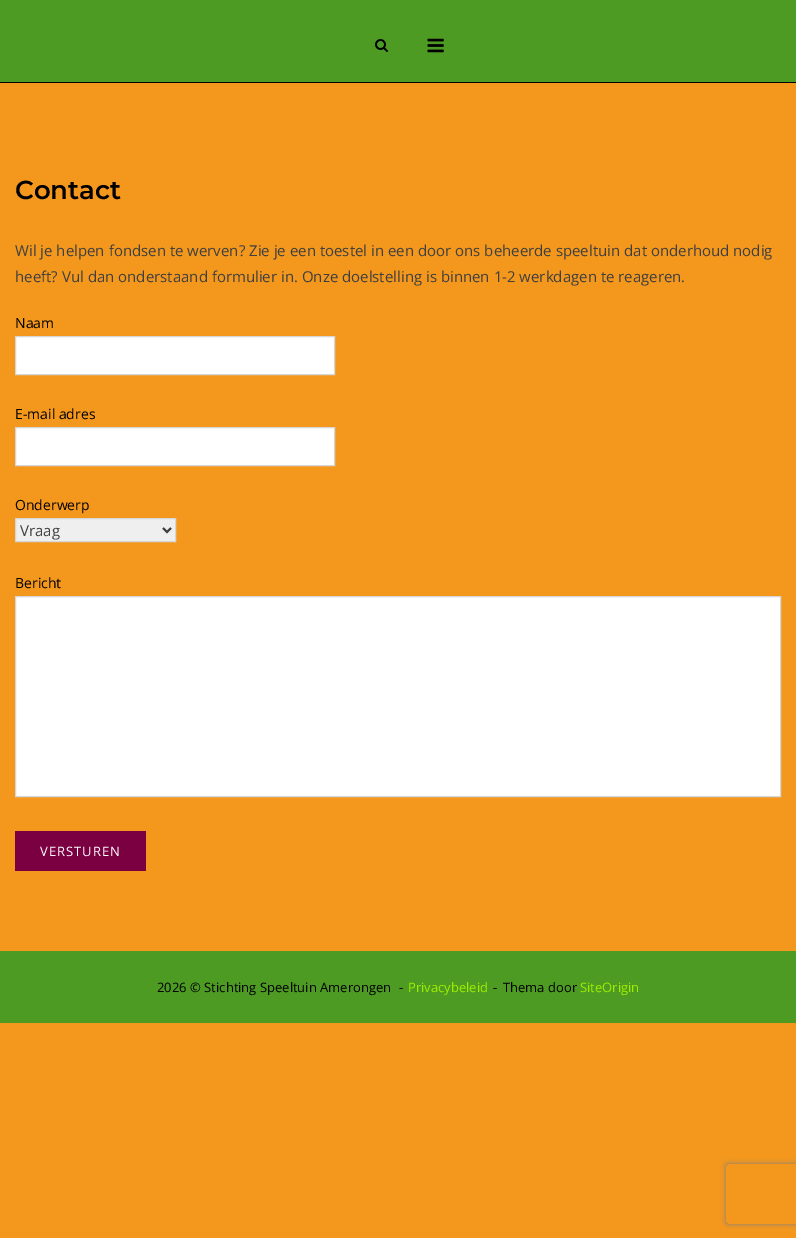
%!PS
<< /PageSize [796 1238] /PageUsesTransparency true >> setpagedevice
/rgb { 3 { 255 div 3 1 roll } repeat setrgbcolor } def
/font { [ exch dup neg 0 0 3 -1 roll 0 0 ] selectfont } def
/text { moveto show } def
/alpha { dup .setfillconstantalpha .setstrokeconstantalpha } def
/roundrect { 5 dict begin { /r /h /w /y /x } { exch def } forall
  x r add y moveto x w add y 2 copy h add r arct x w add y h add x 1 index r arct
  x y h add x y r arct x y 2 copy exch w add exch r arct closepath end } def
/shadow { 12 dict begin { /a /b /q /h /w /y /x } { exch def } forall gsave /was 0 def
  9 -2 -9 { dup b mul 4 div /e exch def 1 sub .425 mul 2.718 exch exp 1 add a .99 .min exch div /now exch def
    1 1 now sub 1 was sub div sub alpha /was now def
    w h .min e 2 mul add 0 gt { x e sub y e sub w e 2 mul add h e 2 mul add
      q e add b .6 mul add w h .min 2 div e add .min 0 .max roundrect fill } if } for grestore end } def
/picture { 5 dict begin { /h /w /y /x /name } { exch def } forall
  gsave x y translate w h scale
  w h 8 [w 0 0 h 0 0] name (r) file false 3 colorimage grestore end } def
0 .pushpdf14devicefilter
0 1238 translate 1 -1 scale
4 setmiterlimit
244 151 29 rgb
0 0 796 1238 rectfill
77 155 35 rgb
0 0 796 82 rectfill
0 0 0 rgb
0 82 796 1 rectfill
(img_01.rgb) 375 39 13 13 picture
(img_02.rgb) 427 38 17 15 picture
255 255 255 rgb
15.5 336.5 moveto 319 0 rlineto 0 38 rlineto -319 0 rlineto closepath gsave fill grestore
214 214 214 rgb
stroke
255 255 255 rgb
15.5 427.5 moveto 319 0 rlineto 0 38 rlineto -319 0 rlineto closepath gsave fill grestore
214 214 214 rgb
stroke
239 239 239 rgb
15.5 518.5 moveto 160 0 rlineto 0 23 rlineto -160 0 rlineto closepath gsave fill grestore
214 214 214 rgb
stroke
63 63 63 rgb
2 setlinewidth
163 528 moveto 4 4 rlineto 4 -4 rlineto stroke
255 255 255 rgb
15.5 596.5 moveto 765 0 rlineto 0 200 rlineto -765 0 rlineto closepath gsave fill grestore
214 214 214 rgb
1 setlinewidth
stroke
122 0 65 rgb
15 831 131 40 rectfill
77 155 35 rgb
0 951 796 72 rectfill
gsave
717 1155 moveto 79 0 rlineto 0 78 rlineto -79 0 rlineto closepath 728 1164 moveto 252 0 rlineto 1 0 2 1 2 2 rcurveto 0 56 rlineto 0 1 -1 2 -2 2 rcurveto -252 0 rlineto -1 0 -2 -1 -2 -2 rcurveto 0 -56 rlineto 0 -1 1 -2 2 -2 rcurveto closepath eoclip newpath
128 128 128 rgb
726 1164 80 60 2 2.5 1 shadow
grestore
/Montserrat-SemiBold 26 font
0 0 0 rgb
(Contact) 15 199 text
/OpenSans-Regular 15 font
63 63 63 rgb
(Wil je helpen fondsen te werven? Zie je een toestel in een door ons beheerde speeltuin dat onderhoud nodig) 15 256 text
(heeft? Vul dan onderstaand formulier in. Onze doelstelling is binnen 1-2 werkdagen te reageren.) 15 282 text
/OpenSans-Regular 14 font
0 0 0 rgb
(Naam) 15 328 text
(E-mail adres) 15 419 text
(Onderwerp) 15 510 text
/OpenSans-Regular 15 font
63 63 63 rgb
(Vraag) 20 536 text
/OpenSans-Regular 14 font
0 0 0 rgb
(Bericht) 15 588 text
/OpenSans-Regular 13 font
255 255 255 rgb
40 856 moveto 1 0 (VERSTUREN) ashow
0 0 0 rgb
(2026 © Stichting Speeltuin Amerongen) 157 992 text
(-) 399 992 text
158 237 0 rgb
(Privacybeleid) 408 992 text
0 0 0 rgb
(-) 493 992 text
(Thema door) 503 992 text
158 237 0 rgb
(SiteOrigin) 580 992 text
.poppdf14devicefilter showpage
